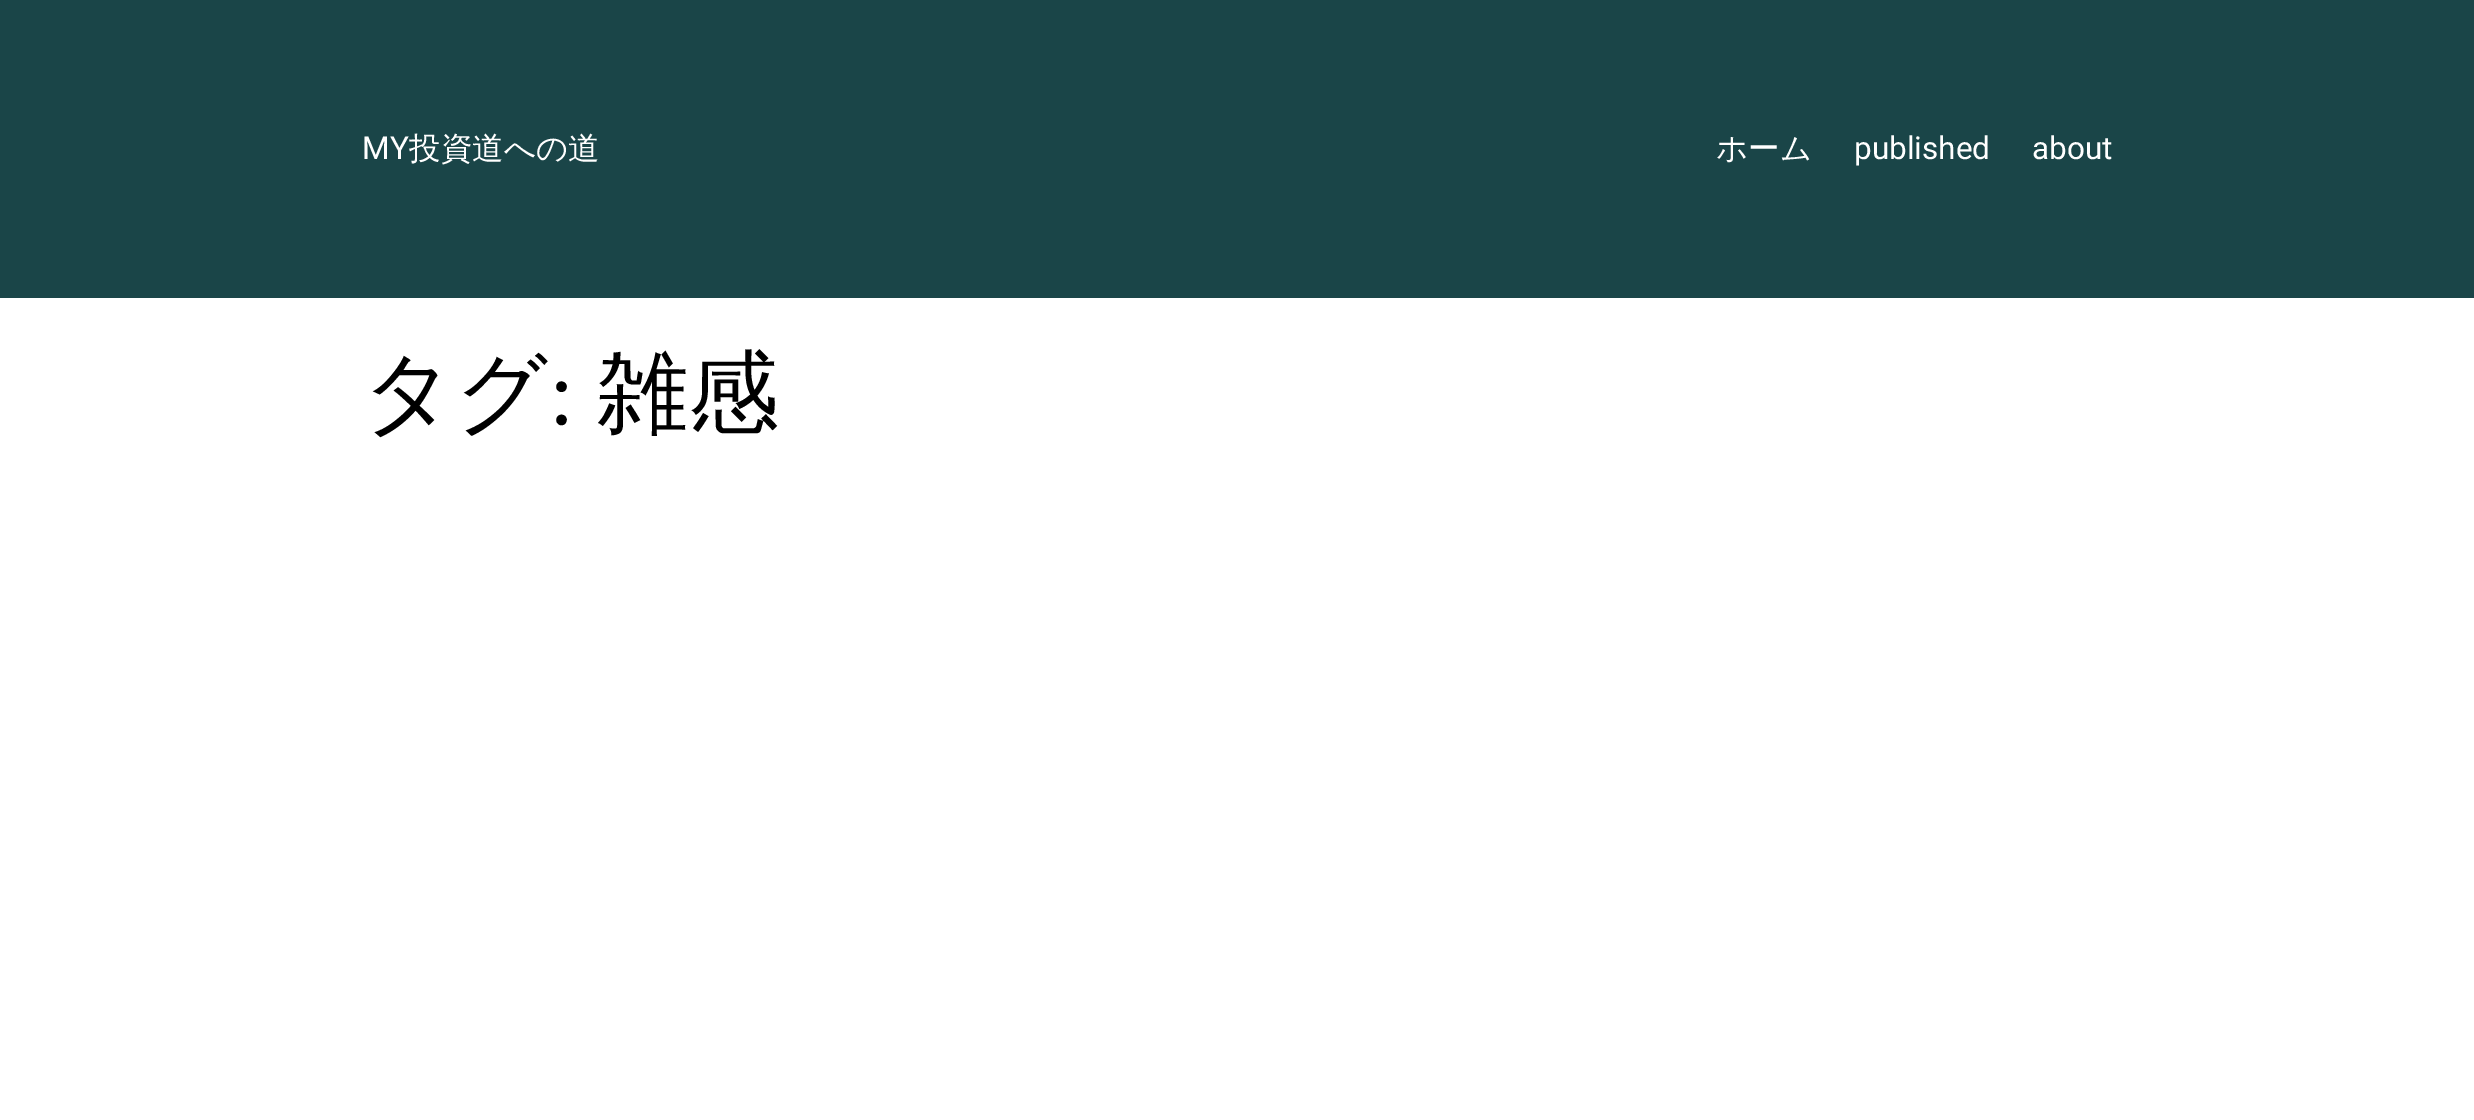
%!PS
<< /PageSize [2474 1120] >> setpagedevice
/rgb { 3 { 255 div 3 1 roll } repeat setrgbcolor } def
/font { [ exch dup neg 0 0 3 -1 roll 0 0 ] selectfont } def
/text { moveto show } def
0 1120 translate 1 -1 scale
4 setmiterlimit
255 255 255 rgb
0 0 2474 1120 rectfill
26 69 72 rgb
0 0 2474 298 rectfill
/Roboto-Regular 31.5 font
255 255 255 rgb
(MY) 362 159 text
/WenQuanYiZenHei-Medium 31.5 font
(投資道への道) 409 159 text
(ホーム) 1716 159 text
/Roboto-Regular 31.5 font
(published) 1854 159 text
(about) 2032 159 text
/WenQuanYiZenHei-Medium 91 font
0 0 0 rgb
(タグ) 362 424 text
/LiberationSerif-Regular 91 font
(:) 549 424 text
/WenQuanYiZenHei-Medium 91 font
(雑感) 597 424 text
showpage
